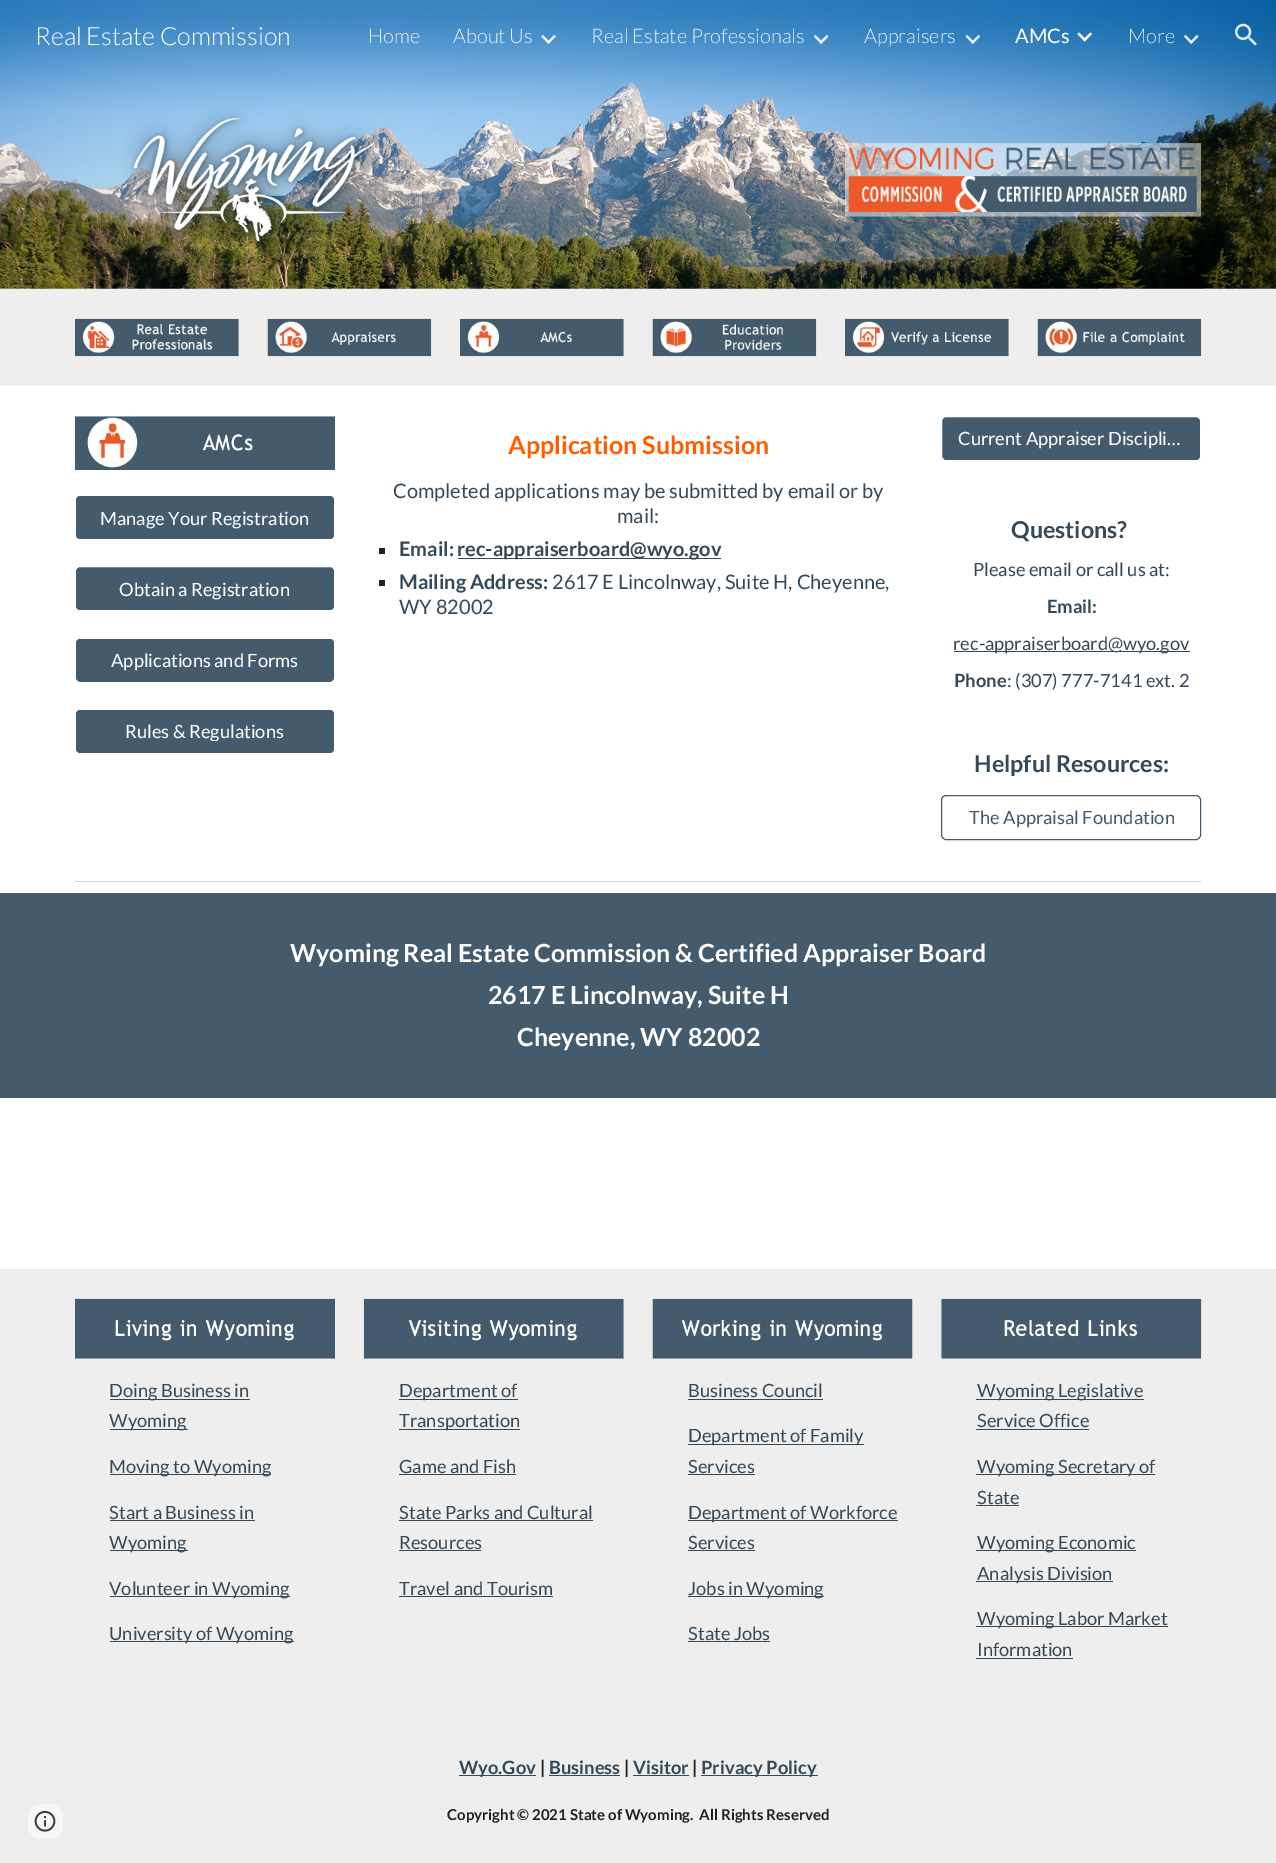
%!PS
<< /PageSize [1276 1863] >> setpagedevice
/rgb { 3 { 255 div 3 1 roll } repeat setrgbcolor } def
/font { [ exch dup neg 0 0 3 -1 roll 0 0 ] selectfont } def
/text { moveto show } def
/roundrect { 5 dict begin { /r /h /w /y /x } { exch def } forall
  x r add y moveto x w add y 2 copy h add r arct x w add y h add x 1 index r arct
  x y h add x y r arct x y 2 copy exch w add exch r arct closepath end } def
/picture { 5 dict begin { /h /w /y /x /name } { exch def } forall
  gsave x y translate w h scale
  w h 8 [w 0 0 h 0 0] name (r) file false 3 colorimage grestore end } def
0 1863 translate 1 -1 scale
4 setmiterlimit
255 255 255 rgb
0 0 1276 1863 rectfill
(img_07.rgb) 0 0 1276 289 picture
(img_01.rgb) 541 34 15 10 picture
(img_02.rgb) 813 34 16 10 picture
(img_03.rgb) 965 34 16 10 picture
(img_04.rgb) 1077 32 15 10 picture
(img_05.rgb) 1183 34 16 10 picture
(img_06.rgb) 1235 23 22 23 picture
(img_08.rgb) 122 106 258 146 picture
(img_09.rgb) 845 143 357 74 picture
238 238 238 rgb
0 289 1276 97 rectfill
(img_10.rgb) 75 318 164 39 picture
(img_11.rgb) 267 318 165 39 picture
(img_12.rgb) 460 318 164 39 picture
(img_13.rgb) 652 318 165 39 picture
(img_14.rgb) 845 318 164 39 picture
(img_15.rgb) 1037 318 165 39 picture
(img_16.rgb) 75 416 260 54 picture
68 91 110 rgb
76 496 258 43 4 roundrect fill
75.5 566.5 259 44 4.5 roundrect gsave fill grestore
255 255 255 rgb
stroke
68 91 110 rgb
76 568 258 42 4 roundrect fill
75.5 638.5 259 44 4.5 roundrect gsave fill grestore
255 255 255 rgb
stroke
68 91 110 rgb
76 639 258 42 4 roundrect fill
76 710 258 43 4 roundrect fill
33 33 33 rgb
379 548 6 6 rectfill
54 73 88 rgb
458 558 263 1 rectfill
33 33 33 rgb
379 580 6 6 rectfill
68 91 110 rgb
941.5 416.5 259 44 4.5 roundrect gsave fill grestore
255 255 255 rgb
stroke
68 91 110 rgb
943 418 257 42 4 roundrect fill
54 73 88 rgb
954 651 236 1 rectfill
68 91 110 rgb
941.5 795.5 259 44 4.5 roundrect stroke
211 211 211 rgb
75 881 1126 1 rectfill
68 91 110 rgb
0 893 1276 205 rectfill
238 238 238 rgb
0 1269 1276 594 rectfill
247 247 247 rgb
28 1804 35 35 13 roundrect fill
(img_17.rgb) 34 1810 22 22 picture
(img_18.rgb) 75 1298 260 61 picture
54 73 88 rgb
110 1399 140 1 rectfill
110 1429 78 1 rectfill
110 1474 161 1 rectfill
110 1520 145 1 rectfill
110 1550 78 1 rectfill
110 1596 180 1 rectfill
110 1641 184 1 rectfill
(img_19.rgb) 363 1298 261 61 picture
399 1399 119 1 rectfill
399 1429 121 1 rectfill
399 1474 117 1 rectfill
399 1520 194 1 rectfill
399 1550 82 1 rectfill
399 1596 154 1 rectfill
(img_20.rgb) 652 1298 261 61 picture
688 1399 135 1 rectfill
688 1444 176 1 rectfill
688 1474 67 1 rectfill
688 1520 210 1 rectfill
688 1550 67 1 rectfill
688 1596 136 1 rectfill
688 1641 82 1 rectfill
(img_21.rgb) 941 1298 261 61 picture
976 1399 168 1 rectfill
976 1429 113 1 rectfill
976 1474 179 1 rectfill
976 1505 43 1 rectfill
976 1550 160 1 rectfill
976 1581 137 1 rectfill
976 1626 192 1 rectfill
976 1658 97 1 rectfill
459 1775 77 1 rectfill
549 1775 71 1 rectfill
633 1775 56 1 rectfill
701 1775 117 1 rectfill
/Lato-Light 25 font
255 255 255 rgb
(Real Estate Commission) 35 45 text
/Lato-Light 20 font
232 241 248 rgb
(Home) 368 43 text
(About Us) 453 43 text
(Real Estate Professionals) 591 43 text
(Appraisers) 864 43 text
/Lato-Regular 20 font
255 255 255 rgb
(AMCs) 1015 43 text
/Lato-Light 20 font
226 237 245 rgb
(More) 1128 43 text
/Lato-Regular 18.3 font
255 255 255 rgb
(Manage Your Registration) 100 525 text
(Obtain a Registration) 119 596 text
(Applications and Forms) 111 667 text
gsave
91 720 228 21 rectclip
(Rules & Regulations) 125 738 text
grestore
/Lato-Bold 25 font
255 94 0 rgb
(Application Submission) 508 454 text
/Lato-Regular 20 font
54 73 88 rgb
(Completed applications may be submitted by email or by) 393 498 text
(mail:) 617 523 text
/Lato-Bold 20 font
(Email:) 399 556 text
(rec-appraiserboard@wyo.gov) 457 556 text
(Mailing Address:) 399 589 text
/Lato-Regular 20 font
(2617 E Lincolnway, Suite H, Cheyenne,) 552 589 text
(WY 82002) 399 614 text
/Lato-Regular 18.3 font
255 255 255 rgb
(Current Appraiser Discipli…) 958 445 text
/Lato-Bold 23.25 font
54 73 88 rgb
(Questions?) 1011 538 text
/Lato-Regular 18.3 font
(Please email or call us at:) 973 576 text
/Lato-Bold 18.3 font
(Email:) 1047 613 text
/Lato-Regular 18.3 font
(rec-appraiserboard@wyo.gov) 953 650 text
/Lato-Bold 18.3 font
(Phone) 954 687 text
/Lato-Regular 18.3 font
(: \(307\) 777-7141 ext. 2) 1007 687 text
/Lato-Bold 23.25 font
(Helpful Resources:) 974 772 text
/Lato-Regular 18.3 font
68 91 110 rgb
(The Appraisal Foundation) 969 824 text
/Lato-Bold 25 font
255 255 255 rgb
(Wyoming Real Estate Commission & Certified Appraiser Board) 290 962 text
(2617 E Lincolnway, Suite H) 488 1004 text
(Cheyenne, WY 82002) 517 1046 text
/Lato-Regular 18.3 font
54 73 88 rgb
(Doing Business in) 109 1397 text
(Wyoming) 109 1427 text
(Moving to Wyoming) 109 1473 text
(Start a Business in) 109 1519 text
(Wyoming) 109 1549 text
(Volunteer in Wyoming) 109 1595 text
(University of Wyoming) 109 1640 text
(Department of) 399 1397 text
(Transportation) 399 1427 text
(Game and Fish) 399 1473 text
(State Parks and Cultural) 399 1519 text
(Resources) 399 1549 text
(Travel and Tourism) 399 1595 text
(Business Council) 688 1397 text
(Department of Family) 688 1442 text
(Services) 688 1473 text
(Department of Workforce) 688 1519 text
(Services) 688 1549 text
(Jobs in Wyoming) 688 1595 text
(State Jobs) 688 1640 text
(Wyoming Legislative) 977 1397 text
(Service Office) 977 1427 text
(Wyoming Secretary of) 977 1473 text
(State) 977 1504 text
(Wyoming Economic) 977 1549 text
(Analysis Division) 977 1580 text
(Wyoming Labor Market) 977 1625 text
(Information) 977 1656 text
/Lato-Bold 18.3 font
(Wyo.Gov) 459 1774 text
33 33 33 rgb
(|) 540 1774 text
54 73 88 rgb
(Business) 549 1774 text
33 33 33 rgb
(|) 624 1774 text
54 73 88 rgb
(Visitor) 633 1774 text
33 33 33 rgb
(|) 692 1774 text
54 73 88 rgb
(Privacy Policy) 701 1774 text
/Lato-Bold 15 font
33 33 33 rgb
(Copyright © 2021 State of Wyoming.  All Rights Reserved) 447 1820 text
showpage
